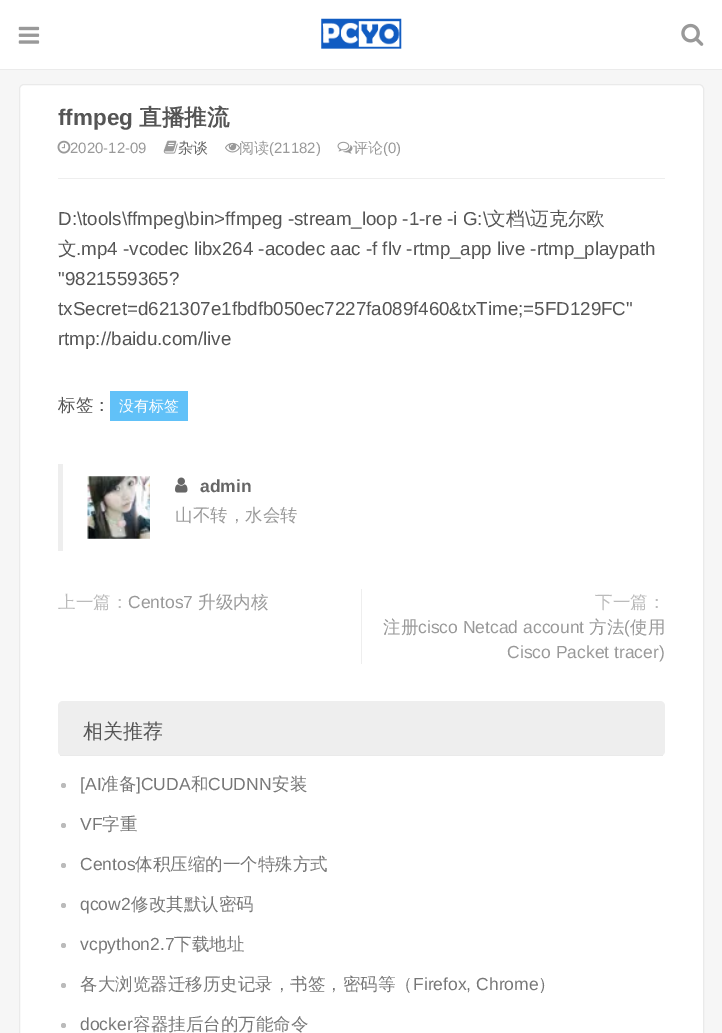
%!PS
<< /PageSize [722 1033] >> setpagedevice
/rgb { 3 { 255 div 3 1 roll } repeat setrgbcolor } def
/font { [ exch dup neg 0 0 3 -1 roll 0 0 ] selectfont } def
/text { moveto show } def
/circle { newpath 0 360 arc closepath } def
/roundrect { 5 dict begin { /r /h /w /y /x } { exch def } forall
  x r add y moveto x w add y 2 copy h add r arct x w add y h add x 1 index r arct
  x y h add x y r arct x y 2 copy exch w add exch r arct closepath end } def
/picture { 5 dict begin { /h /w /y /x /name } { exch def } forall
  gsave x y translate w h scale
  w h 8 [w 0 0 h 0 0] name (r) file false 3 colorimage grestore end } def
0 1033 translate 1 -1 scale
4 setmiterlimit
246 246 246 rgb
0 0 722 1033 rectfill
255 255 255 rgb
0 0 722 69 rectfill
235 235 235 rgb
0 69 722 1 rectfill
(img_01.rgb) 18 26 22 18 picture
(img_02.rgb) 321 18 81 31 picture
(img_03.rgb) 681 23 23 23 picture
255 255 255 rgb
19.5 84.5 684 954 4.5 roundrect gsave fill grestore
234 234 234 rgb
stroke
238 238 238 rgb
58 178 607 1 rectfill
(img_04.rgb) 57 140 14 14 picture
(img_05.rgb) 163 140 15 14 picture
(img_06.rgb) 225 142 15 11 picture
(img_07.rgb) 337 141 16 13 picture
97 193 248 rgb
110 391 78 30 rectfill
238 238 238 rgb
58 464 5 87 rectfill
(img_08.rgb) 87 476 63 63 picture
(img_09.rgb) 175 477 13 16 picture
361 589 1 75 rectfill
58 701 607 55 5 roundrect fill
234 234 234 rgb
60 755 603 1 rectfill
187 187 187 rgb
63.5 785.5 2.5 circle fill
63.5 825.5 2.5 circle fill
63.5 865.5 2.5 circle fill
63.5 905.5 2.5 circle fill
63.5 945.5 2.5 circle fill
63.5 985.5 2.5 circle fill
63.5 1025.5 2.5 circle fill
/LiberationSans-Bold 22.5 font
85 85 85 rgb
(ffmpeg) 58 125 text
/WenQuanYiZenHei-Bold 22.5 font
(直播推流) 139 125 text
/LiberationSans-Regular 15 font
153 153 153 rgb
(2020-12-09) 70 153 text
/WenQuanYiZenHei-Medium 15 font
102 102 102 rgb
(杂谈) 178 153 text
153 153 153 rgb
(阅读) 239 153 text
/LiberationSans-Regular 15 font
(\(21182\)) 269 153 text
/WenQuanYiZenHei-Medium 15 font
(评论) 353 153 text
/LiberationSans-Regular 15 font
(\(0\)) 383 153 text
/LiberationSans-Regular 18.75 font
85 85 85 rgb
(D:\\tools\\ffmpeg\\bin>ffmpeg -stream_loop -1-re -i G:\\) 58 225 text
/WenQuanYiZenHei-Medium 18.75 font
(文档) 487 225 text
/LiberationSans-Regular 18.75 font
(\\) 525 225 text
/WenQuanYiZenHei-Medium 18.75 font
(迈克尔欧) 530 225 text
(文) 58 255 text
/LiberationSans-Regular 18.75 font
(.mp4 -vcodec libx264 -acodec aac -f flv -rtmp_app live -rtmp_playpath) 76 255 text
("9821559365?) 58 285 text
(txSecret=d621307e1fbdfb050ec7227fa089f460&txTime;=5FD129FC") 58 315 text
(rtmp://baidu.com/live) 58 345 text
/WenQuanYiZenHei-Medium 17.5 font
(标签：) 58 411 text
/WenQuanYiZenHei-Medium 15 font
255 255 255 rgb
(没有标签) 119 411 text
/LiberationSans-Bold 17.5 font
102 102 102 rgb
(admin) 200 492 text
/WenQuanYiZenHei-Medium 17.5 font
153 153 153 rgb
(山不转，水会转) 175 521 text
187 187 187 rgb
(上一篇：) 58 608 text
/LiberationSans-Regular 17.5 font
153 153 153 rgb
(Centos7) 128 608 text
/WenQuanYiZenHei-Medium 17.5 font
(升级内核) 198 608 text
187 187 187 rgb
(下一篇：) 595 608 text
153 153 153 rgb
(注册) 383 633 text
/LiberationSans-Regular 17.5 font
(cisco Netcad account) 418 633 text
/WenQuanYiZenHei-Medium 17.5 font
(方法) 589 633 text
/LiberationSans-Regular 17.5 font
(\() 624 633 text
/WenQuanYiZenHei-Medium 17.5 font
(使用) 630 633 text
/LiberationSans-Regular 17.5 font
(Cisco Packet tracer\)) 507 658 text
/WenQuanYiZenHei-Medium 20 font
85 85 85 rgb
(相关推荐) 83 738 text
/LiberationSans-Regular 17.5 font
119 119 119 rgb
([AI) 80 790 text
/WenQuanYiZenHei-Medium 17.5 font
(准备) 101 790 text
/LiberationSans-Regular 17.5 font
(]CUDA) 136 790 text
/WenQuanYiZenHei-Medium 17.5 font
(和) 191 790 text
/LiberationSans-Regular 17.5 font
(CUDNN) 208 790 text
/WenQuanYiZenHei-Medium 17.5 font
(安装) 272 790 text
/LiberationSans-Regular 17.5 font
(VF) 80 830 text
/WenQuanYiZenHei-Medium 17.5 font
(字重) 102 830 text
/LiberationSans-Regular 17.5 font
(Centos) 80 870 text
/WenQuanYiZenHei-Medium 17.5 font
(体积压缩的一个特殊方式) 135 870 text
/LiberationSans-Regular 17.5 font
(qcow2) 80 910 text
/WenQuanYiZenHei-Medium 17.5 font
(修改其默认密码) 131 910 text
/LiberationSans-Regular 17.5 font
(vcpython2.7) 80 950 text
/WenQuanYiZenHei-Medium 17.5 font
(下载地址) 174 950 text
(各大浏览器迁移历史记录，书签，密码等（) 80 990 text
/LiberationSans-Regular 17.5 font
(Firefox, Chrome) 413 990 text
/WenQuanYiZenHei-Medium 17.5 font
(）) 538 990 text
/LiberationSans-Regular 17.5 font
(docker) 80 1030 text
/WenQuanYiZenHei-Medium 17.5 font
(容器挂后台的万能命令) 133 1030 text
showpage
